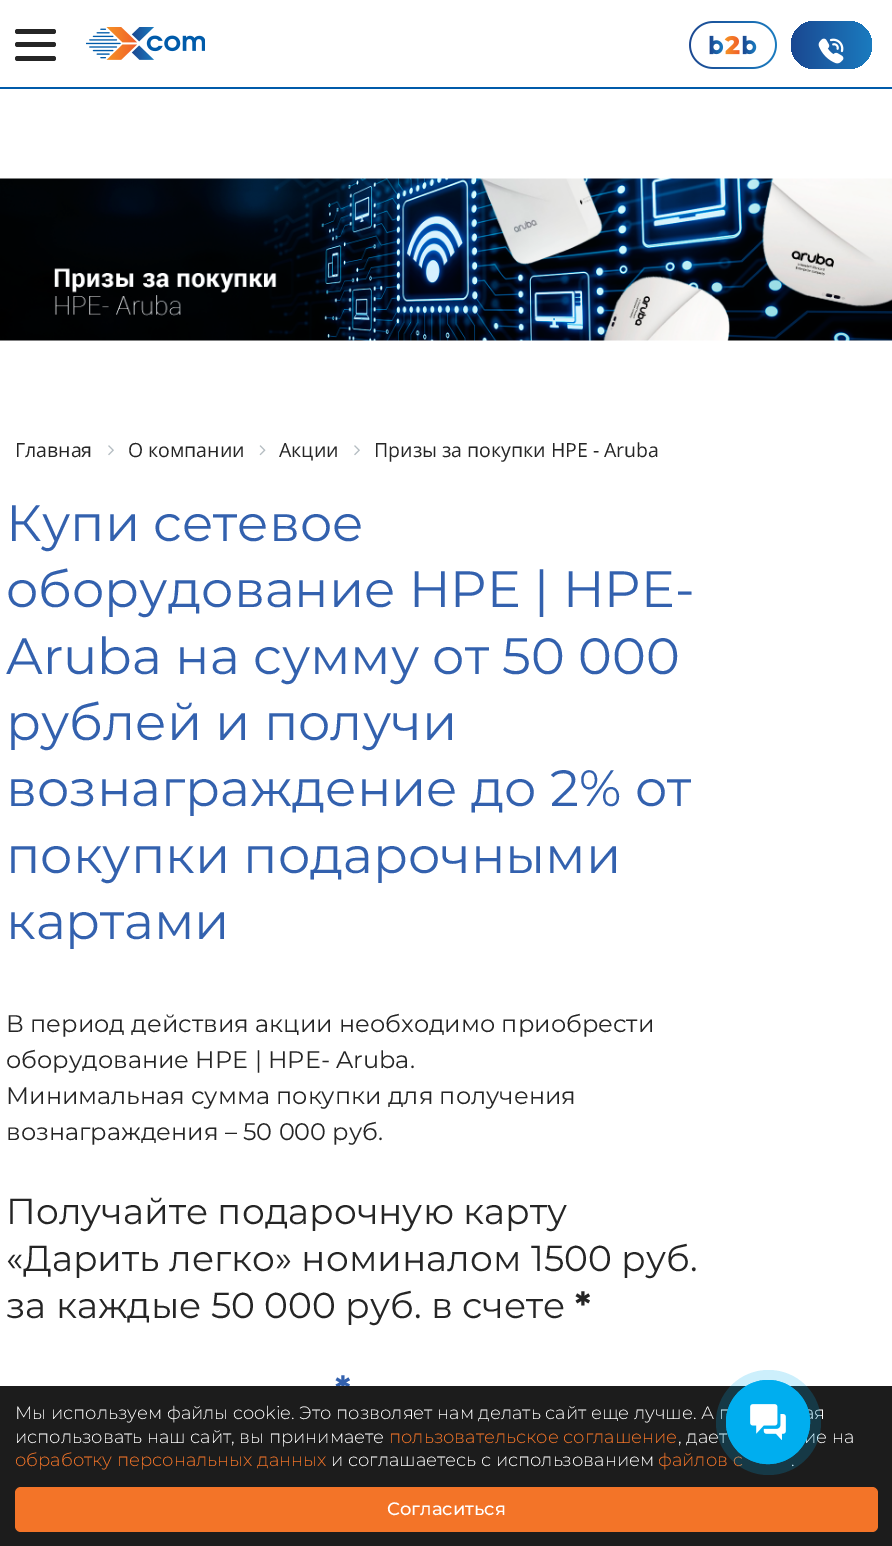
%!PS
<< /PageSize [892 1546] /PageUsesTransparency true >> setpagedevice
/rgb { 3 { 255 div 3 1 roll } repeat setrgbcolor } def
/font { [ exch dup neg 0 0 3 -1 roll 0 0 ] selectfont } def
/text { moveto show } def
/alpha { dup .setfillconstantalpha .setstrokeconstantalpha } def
/circle { newpath 0 360 arc closepath } def
/roundrect { 5 dict begin { /r /h /w /y /x } { exch def } forall
  x r add y moveto x w add y 2 copy h add r arct x w add y h add x 1 index r arct
  x y h add x y r arct x y 2 copy exch w add exch r arct closepath end } def
/picture { 5 dict begin { /h /w /y /x /name } { exch def } forall
  gsave x y translate w h scale
  w h 8 [w 0 0 h 0 0] name (r) file false 3 colorimage grestore end } def
0 .pushpdf14devicefilter
0 1546 translate 1 -1 scale
4 setmiterlimit
255 255 255 rgb
0 0 892 1546 rectfill
0 91 170 rgb
0 87 892 2 rectfill
37 37 37 rgb
15 56 41 5 2.5 roundrect fill
15 29 41 5 2.5 roundrect fill
15 42 41 5 2.5 roundrect fill
(img_01.rgb) 86 27 119 33 picture
(img_02.rgb) 689 21 88 48 picture
gsave 791 21 81 48 24 roundrect clip newpath
<< /ShadingType 2 /ColorSpace /DeviceRGB /Coords [790 45 872 45] /Extend [true true] /Function << /FunctionType 2 /Domain [0 1] /C0 [0.106 0.278 0.565] /C1 [0.102 0.482 0.749] /N 1 >> >> shfill grestore
(img_03.rgb) 818 38 26 26 picture
(img_04.rgb) 0 178 892 163 picture
(img_05.rgb) 108 445 6 11 picture
(img_06.rgb) 259 445 7 11 picture
(img_05.rgb) 354 445 6 11 picture
/OpenSans-Regular 19.5 font
(Главная) 15 457 text
(О компании) 128 457 text
(Акции) 279 457 text
(Призы за покупки HPE - Aruba) 374 457 text
/Montserrat-Regular 51 font
51 97 174 rgb
(Купи сетевое) 6 541 text
(оборудование HPE | HPE-) 6 607 text
(Aruba на сумму от 50 000) 6 674 text
(рублей и получи) 6 740 text
(вознаграждение до 2% от) 6 806 text
(покупки подарочными) 6 873 text
(картами) 6 939 text
/Montserrat-Regular 24 font
37 37 37 rgb
(В период действия акции необходимо приобрести) 6 1032 text
(оборудование HPE | HPE- Aruba.) 6 1068 text
(Минимальная сумма покупки для получения) 6 1104 text
(вознаграждения – 50 000 руб.) 6 1140 text
/Montserrat-Regular 36 font
(Получайте подарочную карту) 6 1224 text
(«Дарить легко» номиналом 1500 руб.) 6 1271 text
(за каждые 50 000 руб. в счете) 6 1318 text
/Montserrat-Bold 36 font
(*) 575 1318 text
51 97 174 rgb
(*) 335 1402 text
28 28 28 rgb
0 1386 892 160 rectfill
/Montserrat-Light 18 font
255 255 255 rgb
(Мы используем файлы cookie. Это позволяет нам делать сайт еще лучше. А п) 15 1419 text
(ая) 804 1419 text
(использовать наш сайт, вы принимаете) 15 1443 text
243 116 40 rgb
(пользовательское соглашение) 389 1443 text
255 255 255 rgb
(, дает) 678 1443 text
(ие на) 804 1443 text
243 116 40 rgb
(обработку персональных данных) 15 1466 text
255 255 255 rgb
(и соглашаетесь с использованием) 331 1466 text
243 116 40 rgb
(файлов c) 658 1466 text
255 255 255 rgb
(.) 791 1466 text
0.2 alpha
0 174 239 rgb
768.5 1422.5 52.5 circle fill
1 alpha
768 1422 41.5 circle stroke
768 1422 42 circle fill
(img_07.rgb) 750 1404 36 36 picture
243 116 40 rgb
15 1487 863 45 6 roundrect fill
/Montserrat-Medium 18 font
255 255 255 rgb
(Согласиться) 387 1515 text
.poppdf14devicefilter showpage
